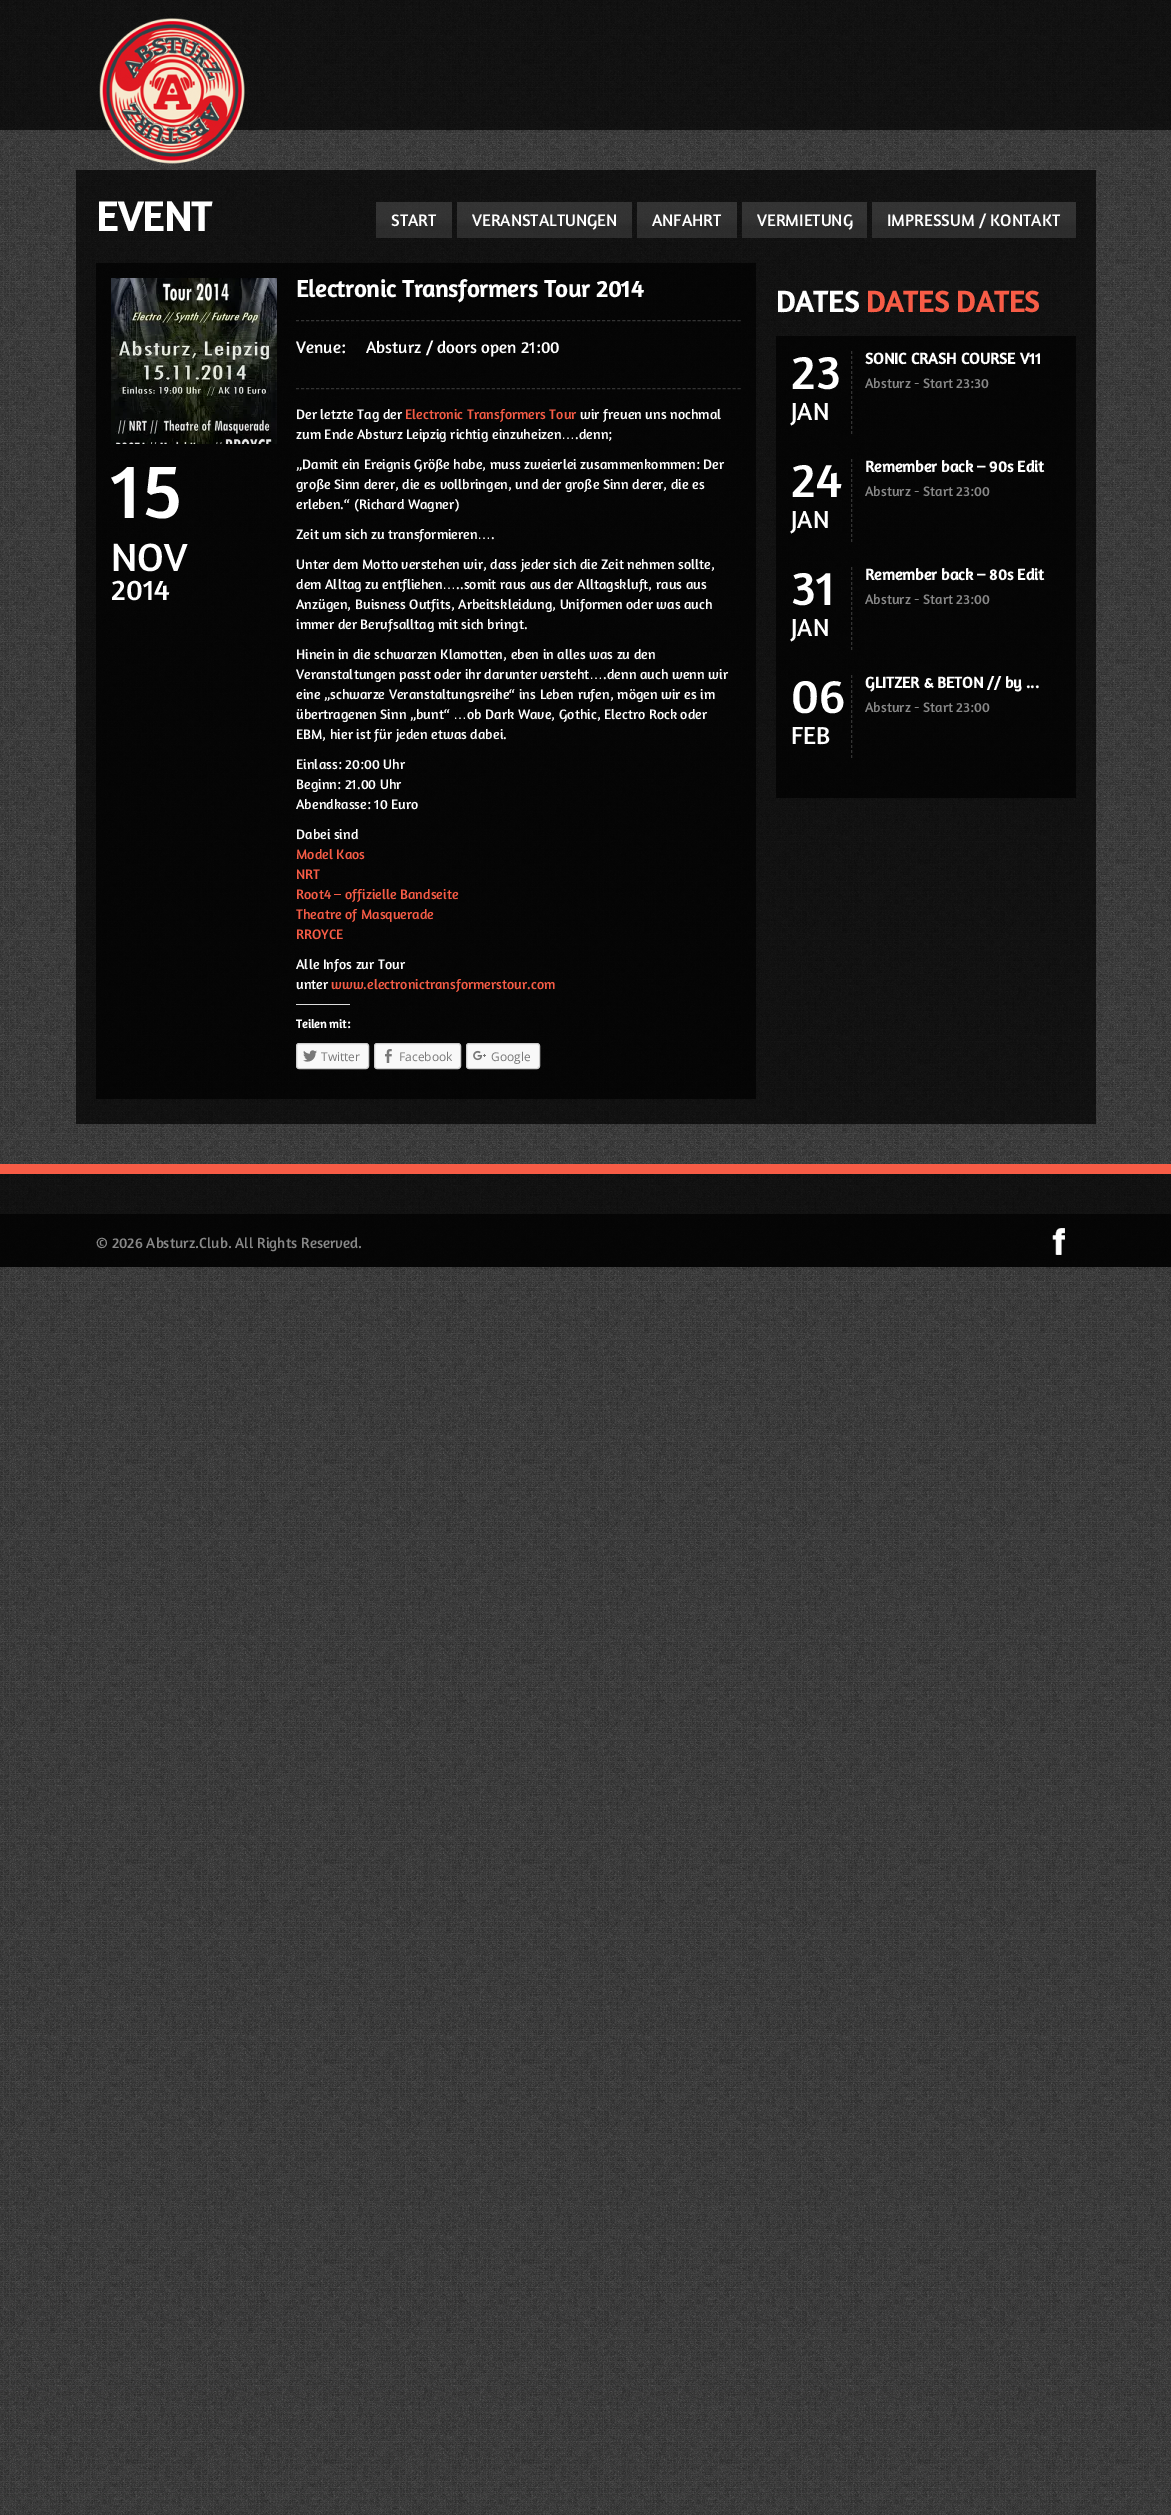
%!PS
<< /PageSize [1171 2515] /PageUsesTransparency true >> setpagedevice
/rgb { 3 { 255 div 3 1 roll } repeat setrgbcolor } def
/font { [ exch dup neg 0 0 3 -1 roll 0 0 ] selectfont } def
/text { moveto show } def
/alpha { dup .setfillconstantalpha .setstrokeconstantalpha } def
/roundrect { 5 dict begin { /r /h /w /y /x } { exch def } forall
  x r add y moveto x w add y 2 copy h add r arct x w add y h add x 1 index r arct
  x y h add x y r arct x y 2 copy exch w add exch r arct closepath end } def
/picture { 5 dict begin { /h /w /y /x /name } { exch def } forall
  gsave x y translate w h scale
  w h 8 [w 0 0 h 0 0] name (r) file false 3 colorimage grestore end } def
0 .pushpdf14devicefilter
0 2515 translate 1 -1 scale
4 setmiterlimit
255 255 255 rgb
0 0 1171 2515 rectfill
(img_01.rgb) 0 0 1171 2515 picture
0.7 alpha
0 0 0 rgb
76 170 1020 954 rectfill
96 263 660 836 rectfill
1 alpha
(img_02.rgb) 111 278 166 166 picture
51 51 51 rgb
[3 2.02] 0 setdash
296 320.5 moveto 445 0 rlineto stroke
296 388.5 moveto 445 0 rlineto stroke
221 221 221 rgb
296 1004 54 1 rectfill
248 248 248 rgb
296.5 1043.5 72 25 2.5 roundrect gsave fill grestore
204 204 204 rgb
[] 0 setdash
stroke
(img_03.rgb) 303 1050 14 12 picture
248 248 248 rgb
374.5 1043.5 86 25 2.5 roundrect gsave fill grestore
204 204 204 rgb
stroke
(img_04.rgb) 385 1049 7 14 picture
248 248 248 rgb
466.5 1043.5 73 25 2.5 roundrect gsave fill grestore
204 204 204 rgb
stroke
(img_05.rgb) 473 1050 13 11 picture
0.7 alpha
0 0 0 rgb
776 336 300 462 rectfill
1 alpha
51 51 51 rgb
[3 2] 0 setdash
851.5 351 moveto 0 83 rlineto stroke
851.5 459 moveto 0 83 rlineto stroke
851.5 567 moveto 0 83 rlineto stroke
851.5 675 moveto 0 83 rlineto stroke
0.7 alpha
0 0 0 rgb
0 0 1171 130 rectfill
1 alpha
(img_06.rgb) 99 18 146 146 picture
(img_07.rgb) 376 202 76 36 picture
(img_08.rgb) 457 202 175 36 picture
(img_09.rgb) 637 202 100 36 picture
(img_10.rgb) 742 202 125 36 picture
(img_11.rgb) 872 202 204 36 picture
0.7 alpha
0 1174 1171 40 rectfill
1 alpha
247 92 70 rgb
0 1164 1171 10 rectfill
0.91 alpha
0 0 0 rgb
0 1214 1171 53 rectfill
1 alpha
(img_12.rgb) 1052 1228 13 27 picture
/Amaranth-Bold 42 font
255 255 255 rgb
(EVENT) 96 231 text
/Amaranth-Regular 80 font
(15) 111 518 text
/Amaranth-Regular 40 font
(NOV) 111 571 text
/Amaranth-Regular 30 font
(2014) 111 600 text
/Amaranth-Bold 24 font
(Electronic Transformers Tour 2014) 296 297 text
/Amaranth-Regular 17 font
(Venue:) 296 353 text
(Absturz / doors open 21:00) 366 353 text
/Amaranth-Regular 14 font
(Der letzte Tag der) 296 419 text
247 92 70 rgb
(Electronic Transformers Tour) 405 419 text
255 255 255 rgb
(wir freuen uns nochmal) 580 419 text
(zum Ende Absturz Leipzig richtig einzuheizen) 296 439 text
/LiberationSans-Regular 14 font
(…) 561 439 text
/Amaranth-Regular 14 font
(.denn;) 575 439 text
(„Damit ein Ereignis Größe habe, muss zweierlei zusammenkommen: Der) 296 469 text
(große Sinn derer, die es vollbringen, und der große Sinn derer, die es) 296 489 text
(erleben.“ \(Richard Wagner\)) 296 509 text
(Zeit um sich zu transformieren) 296 539 text
/LiberationSans-Regular 14 font
(…) 477 539 text
/Amaranth-Regular 14 font
(.) 491 539 text
(Unter dem Motto verstehen wir, dass jeder sich die Zeit nehmen sollte,) 296 569 text
(dem Alltag zu entfliehen) 296 589 text
/LiberationSans-Regular 14 font
(…) 442 589 text
/Amaranth-Regular 14 font
(..somit raus aus der Alltagskluft, raus aus) 456 589 text
(Anzügen, Buisness Outfits, Arbeitskleidung, Uniformen oder was auch) 296 609 text
(immer der Berufsalltag mit sich bringt.) 296 629 text
(Hinein in die schwarzen Klamotten, eben in alles was zu den) 296 659 text
(Veranstaltungen passt oder ihr darunter versteht) 296 679 text
/LiberationSans-Regular 14 font
(…) 589 679 text
/Amaranth-Regular 14 font
(.denn auch wenn wir) 603 679 text
(eine „schwarze Veranstaltungsreihe“ ins Leben rufen, mögen wir es im) 296 699 text
(übertragenen Sinn „bunt“) 296 719 text
/LiberationSans-Regular 14 font
(…) 453 719 text
/Amaranth-Regular 14 font
(ob Dark Wave, Gothic, Electro Rock oder) 467 719 text
(EBM, hier ist für jeden etwas dabei.) 296 739 text
(Einlass: 20:00 Uhr) 296 769 text
(Beginn: 21.00 Uhr) 296 789 text
(Abendkasse: 10 Euro) 296 809 text
(Dabei sind) 296 839 text
247 92 70 rgb
(Model Kaos) 296 859 text
(NRT) 296 879 text
(Root4 – offizielle Bandseite) 296 899 text
(Theatre of Masquerade) 296 919 text
(RROYCE) 296 939 text
255 255 255 rgb
(Alle Infos zur Tour) 296 969 text
(unter) 296 989 text
247 92 70 rgb
(www.electronictransformerstour.com) 331 989 text
/Amaranth-Bold 12 font
255 255 255 rgb
(Teilen mit:) 296 1028 text
/OpenSans-Regular 12 font
119 119 119 rgb
(Twitter) 321 1061 text
(Facebook) 399 1061 text
(Google) 491 1061 text
/Amaranth-Bold 30 font
255 255 255 rgb
(DATES) 776 312 text
247 92 70 rgb
(DATES DATES) 866 312 text
/Amaranth-Regular 50 font
255 255 255 rgb
(23) 791 389 text
/Amaranth-Regular 25 font
(JAN) 791 420 text
/Amaranth-Bold 16 font
(SONIC CRASH COURSE V11) 865 364 text
/Amaranth-Regular 14 font
136 136 136 rgb
(Absturz - Start 23:30) 865 388 text
/Amaranth-Regular 50 font
255 255 255 rgb
(24) 791 497 text
/Amaranth-Regular 25 font
(JAN) 791 528 text
/Amaranth-Bold 16 font
(Remember back – 90s Edit) 865 472 text
/Amaranth-Regular 14 font
136 136 136 rgb
(Absturz - Start 23:00) 865 496 text
/Amaranth-Regular 50 font
255 255 255 rgb
(31) 791 605 text
/Amaranth-Regular 25 font
(JAN) 791 636 text
/Amaranth-Bold 16 font
(Remember back – 80s Edit) 865 580 text
/Amaranth-Regular 14 font
136 136 136 rgb
(Absturz - Start 23:00) 865 604 text
/Amaranth-Regular 50 font
255 255 255 rgb
(06) 791 713 text
/Amaranth-Regular 25 font
(FEB) 791 744 text
/Amaranth-Bold 16 font
(GLITZER & BETON // by ...) 865 688 text
/Amaranth-Regular 14 font
136 136 136 rgb
(Absturz - Start 23:00) 865 712 text
/Amaranth-Regular 17 font
255 255 255 rgb
(START) 391 226 text
(VERANSTALTUNGEN) 472 226 text
(ANFAHRT) 652 226 text
(VERMIETUNG) 757 226 text
(IMPRESSUM / KONTAKT) 887 226 text
/Amaranth-Regular 15 font
136 136 136 rgb
(© 2026 Absturz.Club. All Rights Reserved.) 96 1248 text
.poppdf14devicefilter showpage
